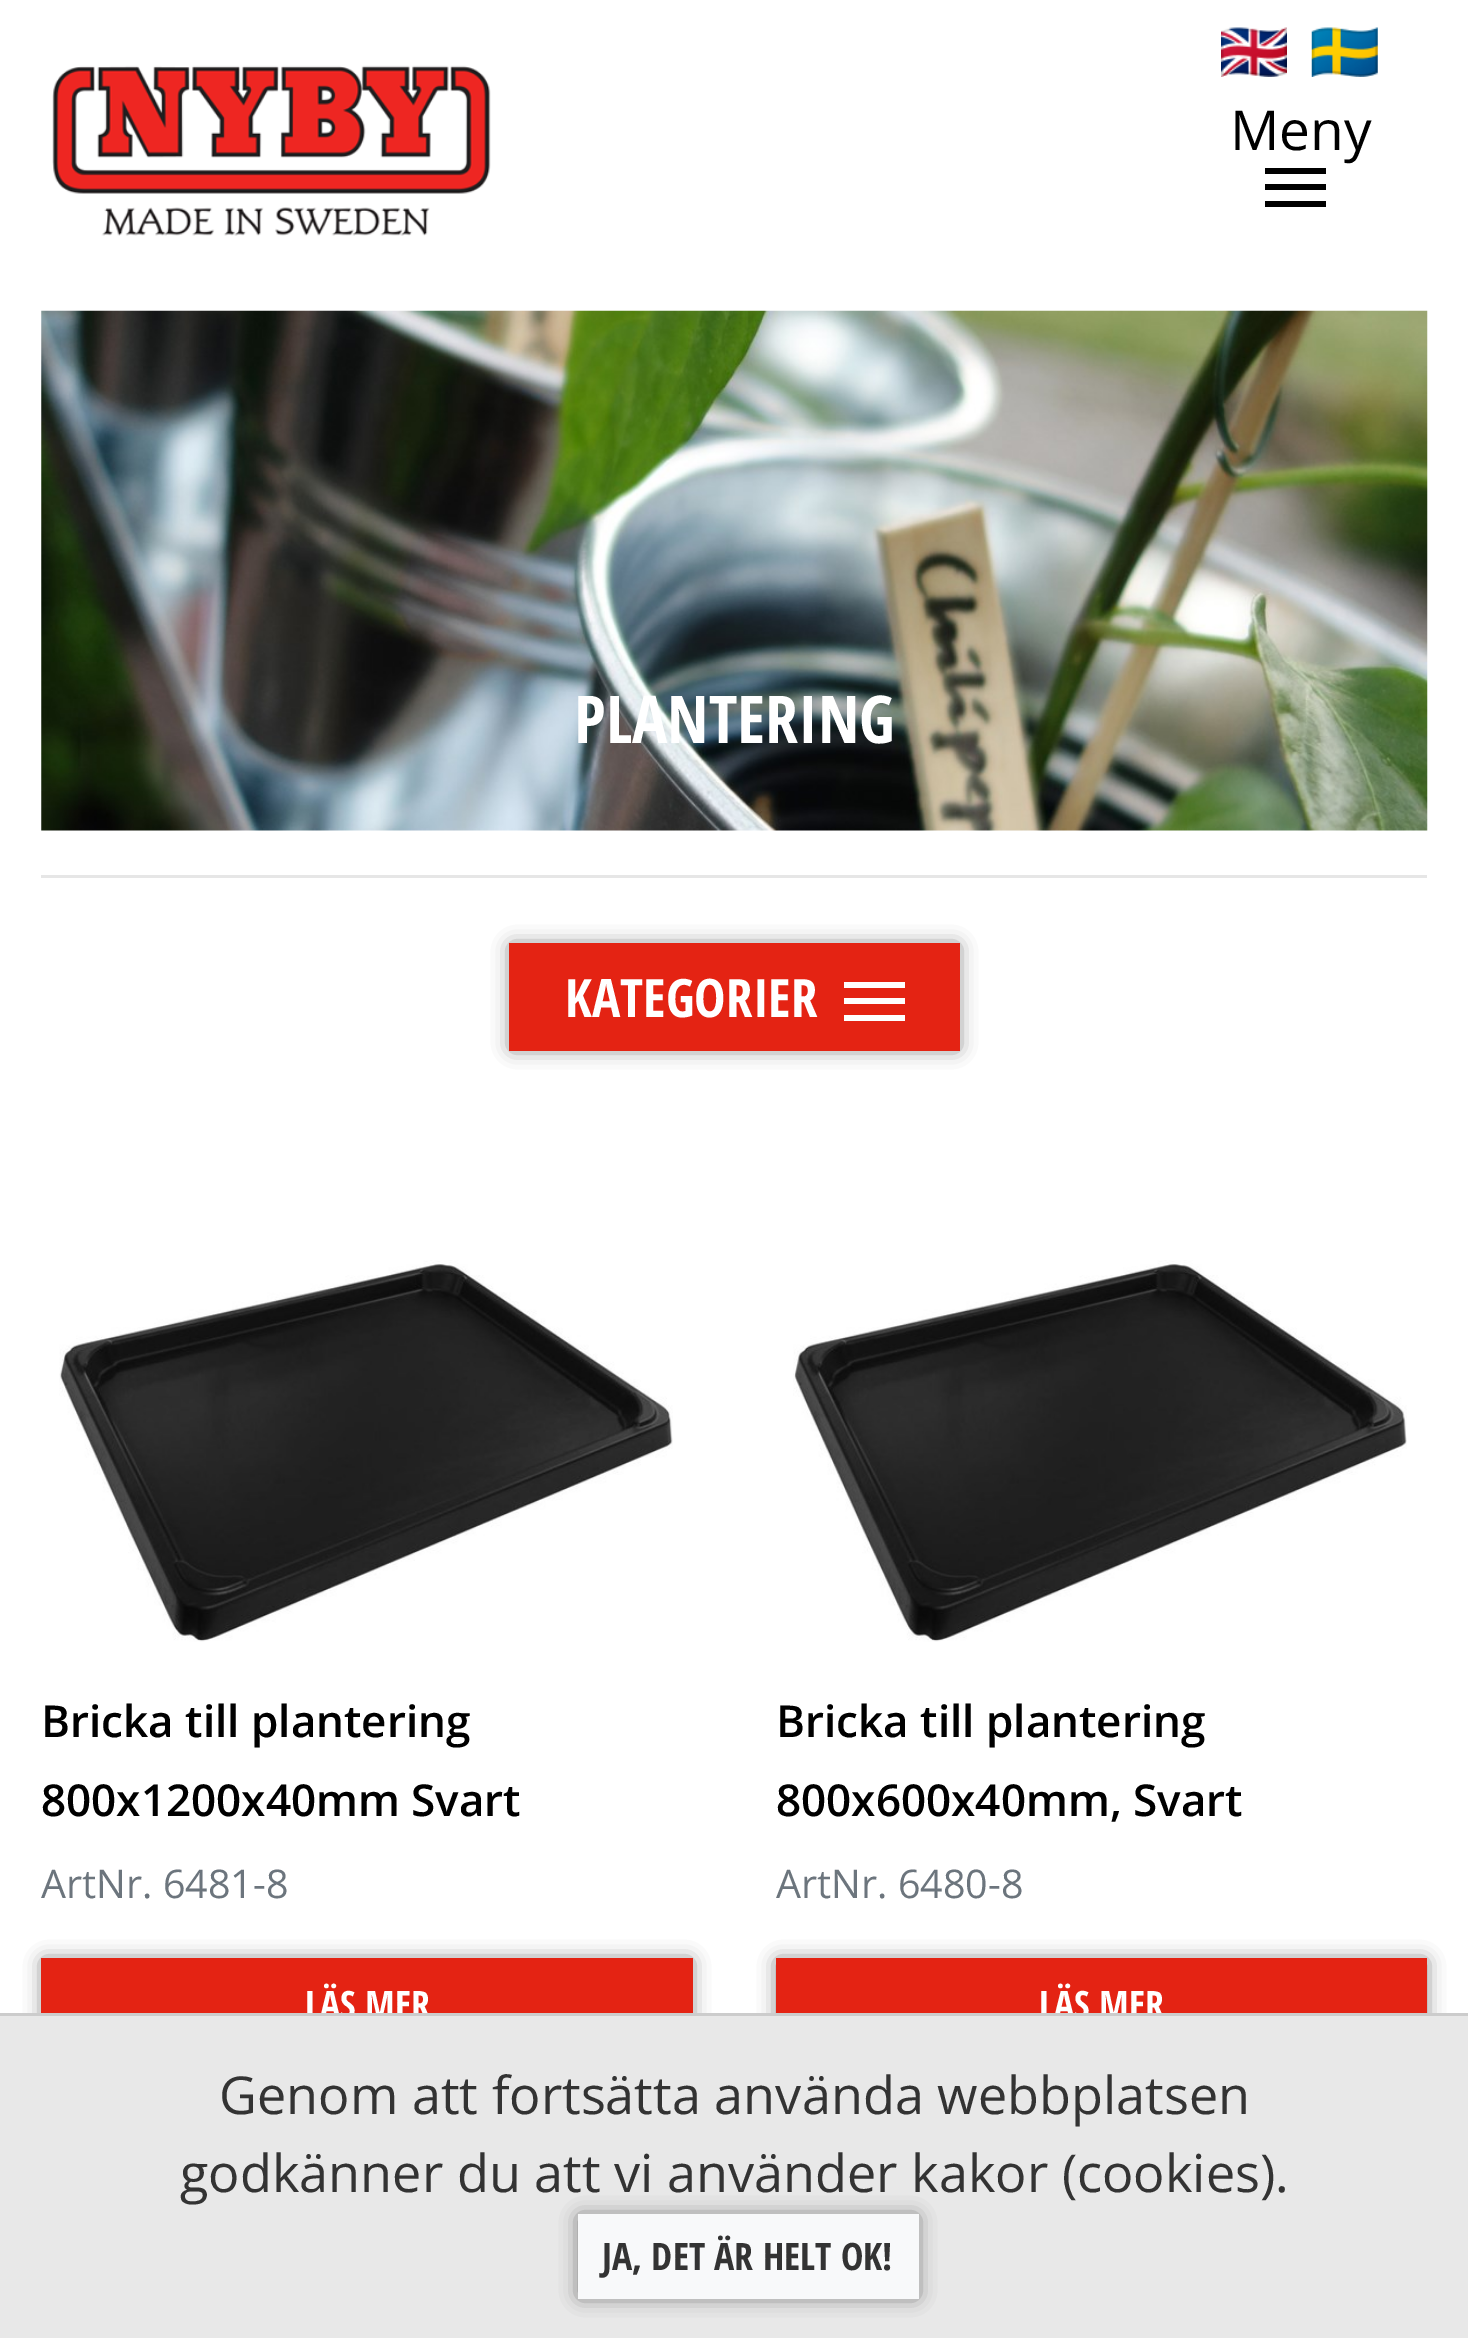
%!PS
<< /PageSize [1468 2338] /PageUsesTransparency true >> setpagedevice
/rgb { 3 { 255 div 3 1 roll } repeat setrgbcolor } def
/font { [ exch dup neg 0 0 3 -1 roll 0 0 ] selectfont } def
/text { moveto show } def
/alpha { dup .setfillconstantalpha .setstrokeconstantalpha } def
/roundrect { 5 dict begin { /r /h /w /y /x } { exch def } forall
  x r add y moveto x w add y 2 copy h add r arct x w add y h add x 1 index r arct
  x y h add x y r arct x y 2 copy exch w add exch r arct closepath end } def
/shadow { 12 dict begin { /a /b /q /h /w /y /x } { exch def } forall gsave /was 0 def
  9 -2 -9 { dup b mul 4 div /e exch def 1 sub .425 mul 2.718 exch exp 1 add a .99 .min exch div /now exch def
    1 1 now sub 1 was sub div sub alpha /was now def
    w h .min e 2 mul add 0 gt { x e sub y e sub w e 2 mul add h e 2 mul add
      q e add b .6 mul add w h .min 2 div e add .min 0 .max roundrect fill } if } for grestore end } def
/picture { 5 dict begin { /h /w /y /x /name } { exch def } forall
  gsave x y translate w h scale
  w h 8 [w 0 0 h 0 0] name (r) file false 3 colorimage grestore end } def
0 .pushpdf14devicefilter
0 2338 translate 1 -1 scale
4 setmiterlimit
255 255 255 rgb
0 0 1468 2338 rectfill
(img_01.rgb) 1221 27 66 50 picture
(img_02.rgb) 1311 27 67 50 picture
(img_03.rgb) 52 65 439 171 picture
0 0 0 rgb
1265 168 61 6 rectfill
1265 184 61 6 rectfill
1265 201 61 6 rectfill
(img_04.rgb) 41 310 1387 521 picture
230 230 230 rgb
41 875 1386 3 rectfill
0 0 0 rgb
512 946 445 102 0 9.5 0.6 shadow
228 35 19 rgb
509 943 451 108 rectfill
255 255 255 rgb
844 982 61 6 rectfill
844 998 61 6 rectfill
844 1015 61 6 rectfill
(img_05.rgb) 59 1260 614 382 picture
0 0 0 rgb
44 1961 646 88 0 9.5 0.6 shadow
228 35 19 rgb
41 1958 652 55 rectfill
(img_06.rgb) 793 1260 614 382 picture
0 0 0 rgb
778 1961 647 88 0 9.5 0.6 shadow
228 35 19 rgb
776 1958 651 55 rectfill
/OpenSans-Regular 55 font
0 0 0 rgb
(Meny) 1230 150 text
/OpenSansCondensed-Bold 66 font
255 255 255 rgb
(PLANTERING) 574 743 text
/OpenSansCondensed-Bold 53 font
(KATEGORIER) 565 1017 text
/OpenSans-SemiBold 44 font
0 0 0 rgb
(Bricka till plantering) 41 1737 text
(800x1200x40mm Svart) 41 1816 text
/OpenSans-Regular 39.5 font
108 117 125 rgb
(ArtNr. 6481-8) 41 1898 text
/OpenSansCondensed-Bold 37.75 font
255 255 255 rgb
(LÄS MER) 305 2018 text
/OpenSans-SemiBold 44 font
0 0 0 rgb
(Bricka till plantering) 776 1737 text
(800x600x40mm, Svart) 776 1816 text
/OpenSans-Regular 39.5 font
108 117 125 rgb
(ArtNr. 6480-8) 776 1898 text
/OpenSansCondensed-Bold 37.75 font
255 255 255 rgb
(LÄS MER) 1039 2018 text
232 232 232 rgb
0 2016 1468 322 rectfill
204 204 204 rgb
0 2013 1468 3 rectfill
/OpenSans-Regular 52.25 font
51 51 51 rgb
(Genom att fortsätta använda webbplatsen) 219 2114 text
(godkänner du att vi använder kakor \(cookies\).) 180 2192 text
0 0 0 rgb
580 2217 336 79 0 9.5 0.6 shadow
248 249 250 rgb
578 2214 341 85 rectfill
/OpenSansCondensed-Bold 37.75 font
51 51 51 rgb
(JA, DET ÄR HELT OK!) 602 2270 text
.poppdf14devicefilter showpage
